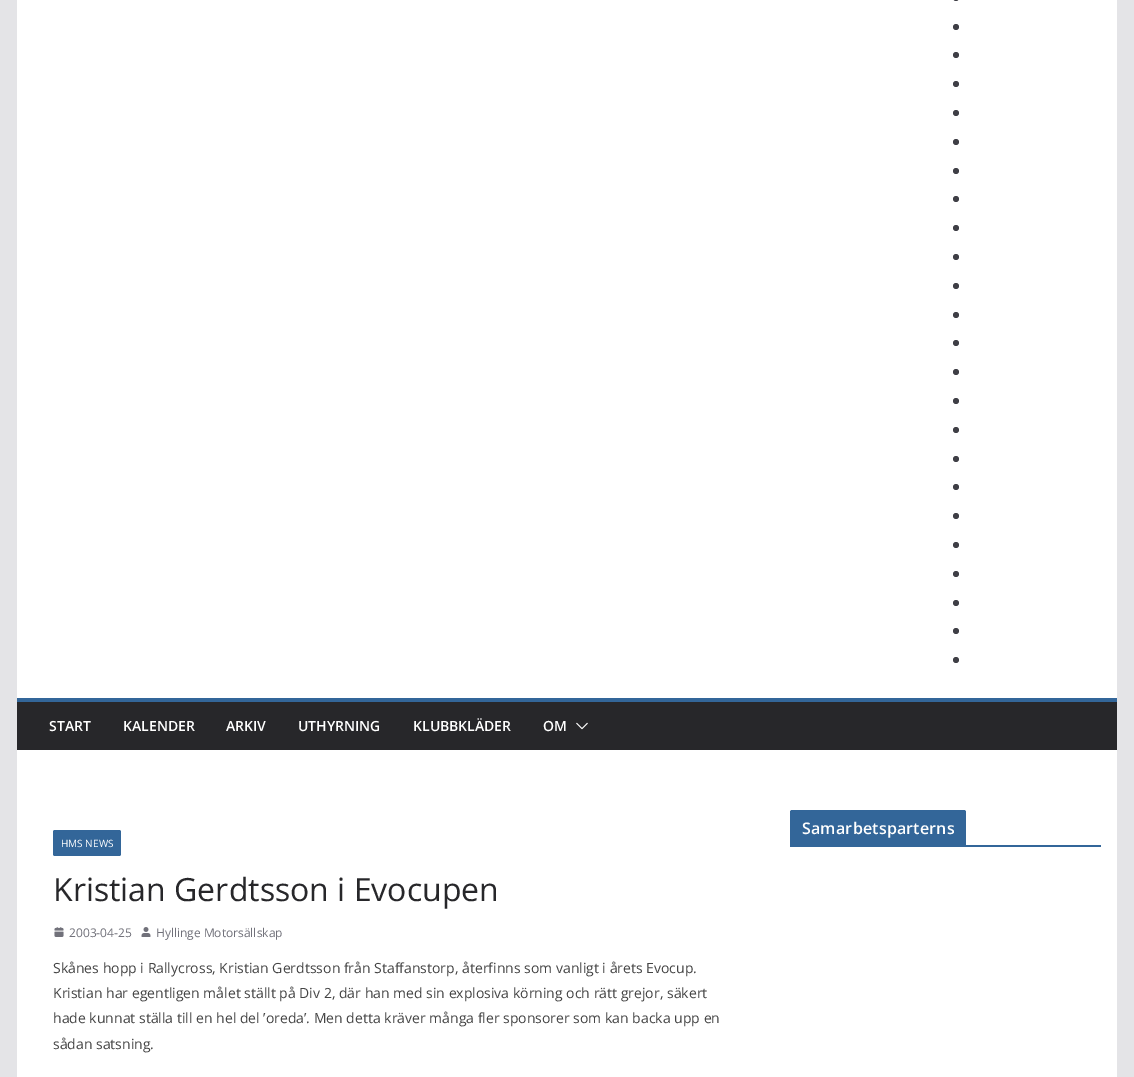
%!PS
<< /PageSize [1134 1077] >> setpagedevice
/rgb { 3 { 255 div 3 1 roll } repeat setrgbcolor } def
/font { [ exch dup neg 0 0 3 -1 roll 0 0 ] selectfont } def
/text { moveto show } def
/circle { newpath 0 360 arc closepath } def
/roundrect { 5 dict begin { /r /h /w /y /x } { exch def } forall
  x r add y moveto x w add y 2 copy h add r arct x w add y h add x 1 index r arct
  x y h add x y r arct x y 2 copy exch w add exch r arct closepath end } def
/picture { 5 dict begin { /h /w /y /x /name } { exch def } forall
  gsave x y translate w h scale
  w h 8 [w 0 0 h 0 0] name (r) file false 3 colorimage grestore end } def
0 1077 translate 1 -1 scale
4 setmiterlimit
228 228 231 rgb
0 0 1134 1077 rectfill
255 255 255 rgb
17 0 1100 698 rectfill
63 63 70 rgb
953 -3 6 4 3 roundrect fill
956 27 3 circle fill
956 55 3 circle fill
956 84 3 circle fill
956 113 3 circle fill
956 142 3 circle fill
956 171 3 circle fill
956 199 3 circle fill
956 228 3 circle fill
956 257 3 circle fill
956 286 3 circle fill
956 315 3 circle fill
956 343 3 circle fill
956 372 3 circle fill
956 401 3 circle fill
956 430 3 circle fill
956 459 3 circle fill
956 487 3 circle fill
956 516 3 circle fill
956 545 3 circle fill
956 574 3 circle fill
956 603 3 circle fill
956 631 3 circle fill
956 660 3 circle fill
39 39 42 rgb
17 702 1100 48 rectfill
51 102 153 rgb
17 698 1100 4 rectfill
(img_01.rgb) 576 722 12 8 picture
255 255 255 rgb
17 750 1100 327 rectfill
51 102 153 rgb
790 845 311 2 rectfill
792 810 moveto 172 0 rlineto 1 0 2 1 2 2 rcurveto 0 33 rlineto -176 0 rlineto 0 -33 rlineto 0 -1 1 -2 2 -2 rcurveto closepath fill
53 830 68 26 2 roundrect fill
(img_02.rgb) 54 927 10 10 picture
(img_03.rgb) 141 927 10 10 picture
/OpenSans-SemiBold 14 font
255 255 255 rgb
(START) 49 731 text
(KALENDER) 123 731 text
(ARKIV) 226 731 text
(UTHYRNING) 298 731 text
(KLUBBKLÄDER) 413 731 text
(OM) 543 731 text
/OpenSans-SemiBold 16 font
802 834 moveto 0.2 0 (Samarbetsparterns) ashow
/OpenSans-Regular 10 font
(HMS NEWS) 61 847 text
/OpenSans-Regular 32 font
39 39 42 rgb
(Kristian Gerdtsson i Evocupen) 53 901 text
/OpenSans-Regular 12 font
113 113 122 rgb
(2003-04-25) 69 937 text
(Hyllinge Motorsällskap) 156 937 text
/OpenSans-Regular 14 font
68 68 68 rgb
(Skånes hopp i Rallycross, Kristian Gerdtsson från Staffanstorp, återfinns som vanligt i årets Evocup.) 53 973 text
(Kristian har egentligen målet ställt på Div 2, där han med sin explosiva körning och rätt grejor, säkert) 53 998 text
(hade kunnat ställa till en hel del ’oreda’. Men detta kräver många fler sponsorer som kan backa upp en) 53 1023 text
(sådan satsning.) 53 1049 text
showpage
